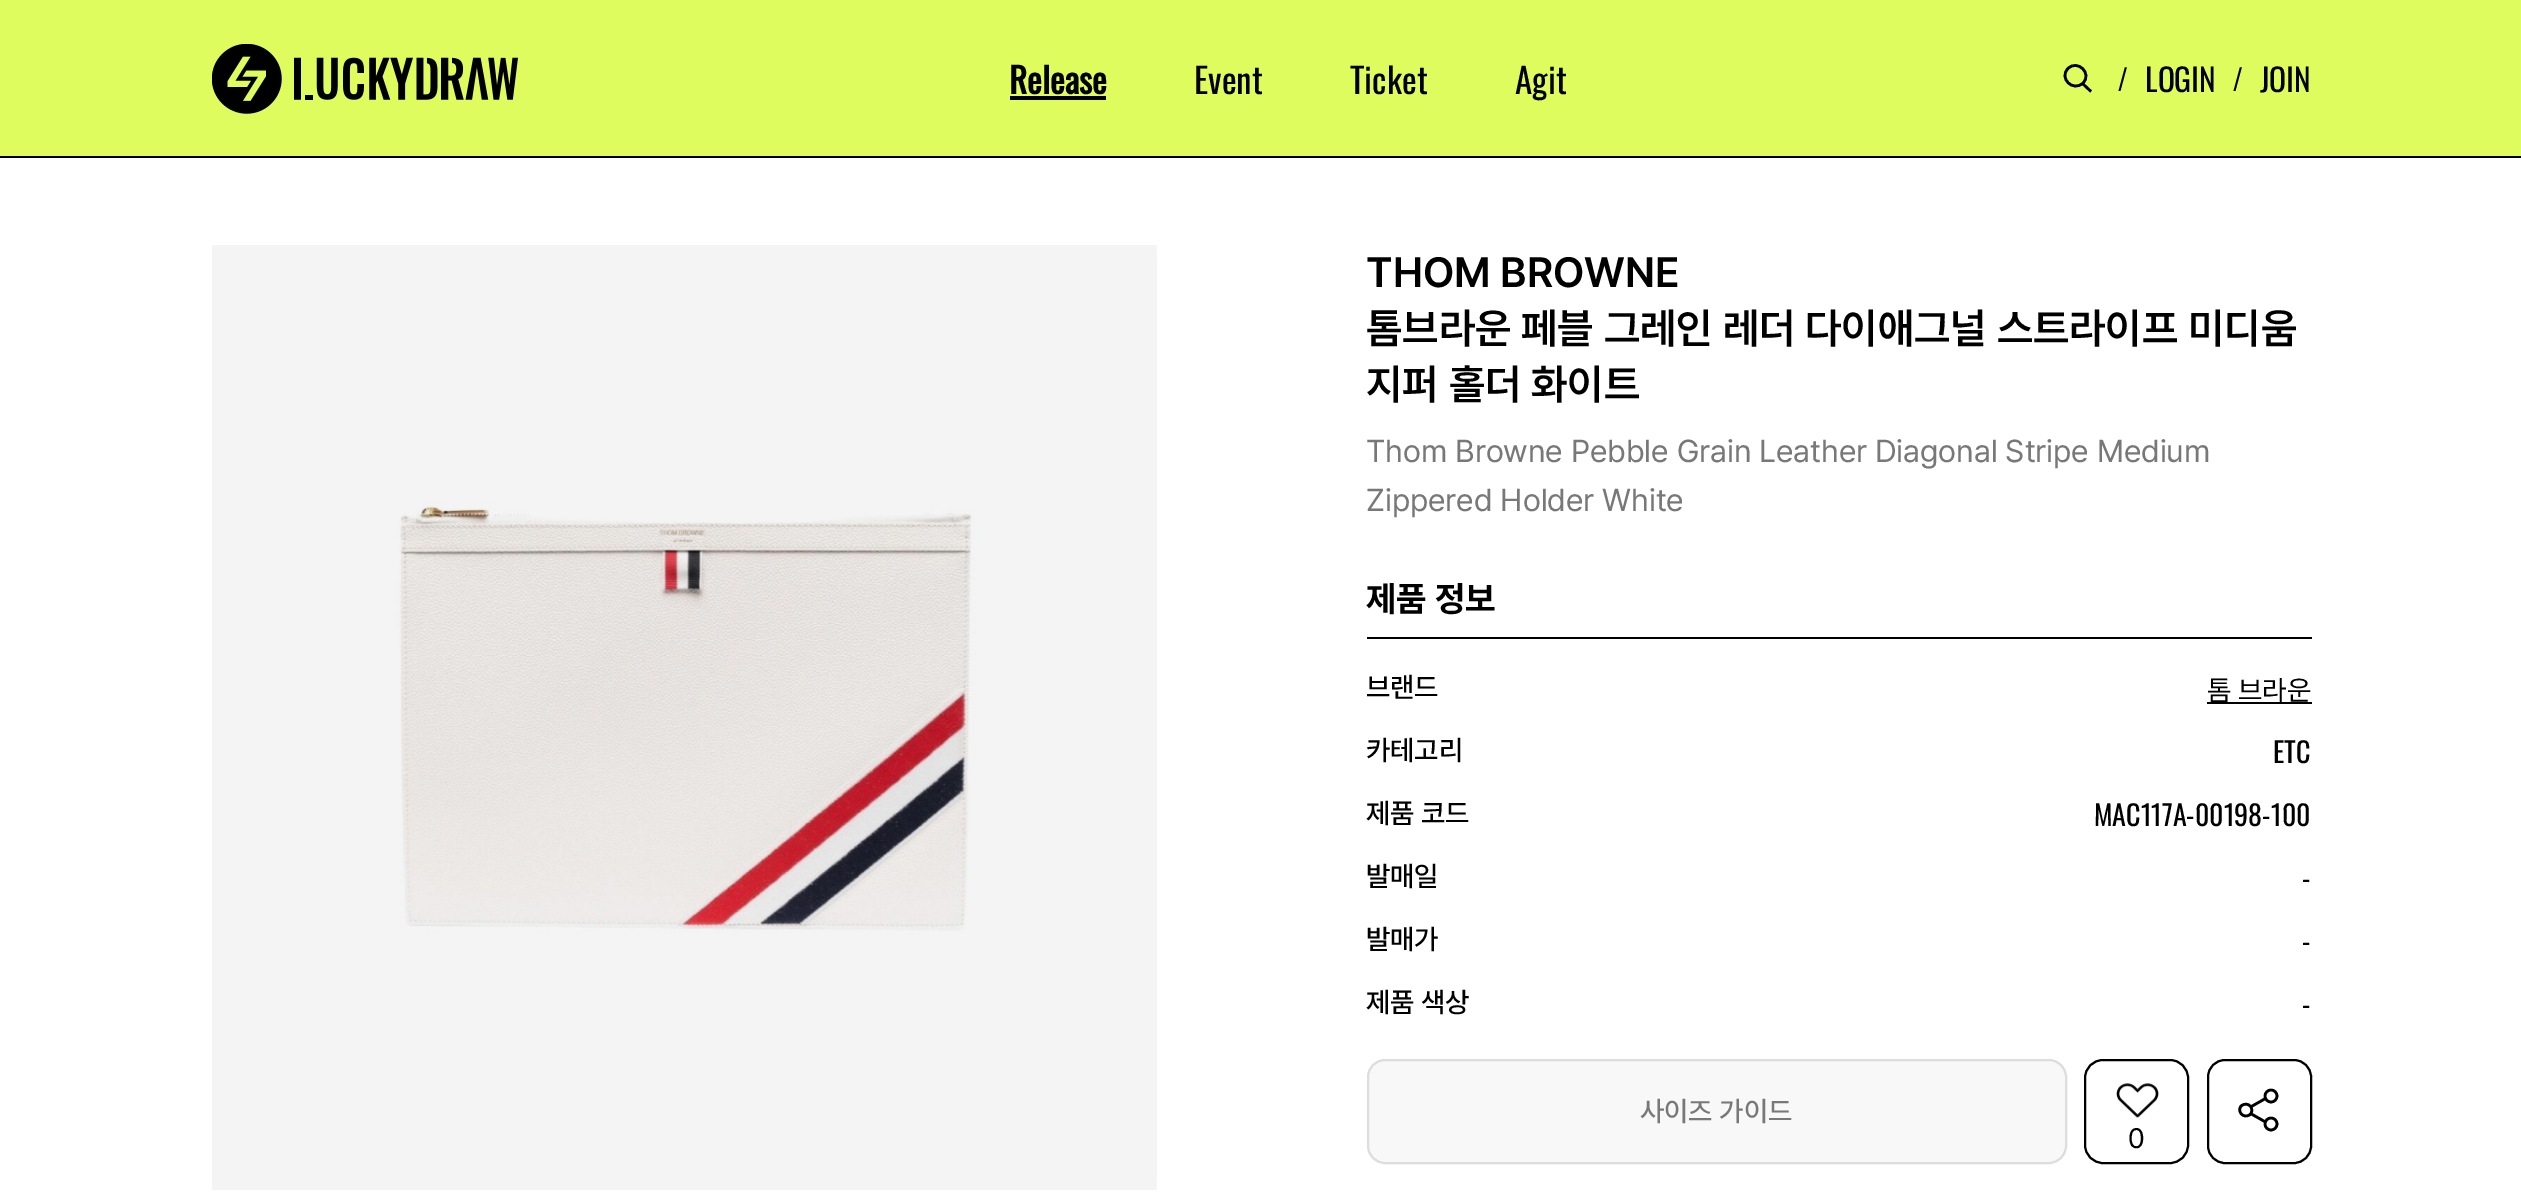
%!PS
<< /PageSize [2521 1199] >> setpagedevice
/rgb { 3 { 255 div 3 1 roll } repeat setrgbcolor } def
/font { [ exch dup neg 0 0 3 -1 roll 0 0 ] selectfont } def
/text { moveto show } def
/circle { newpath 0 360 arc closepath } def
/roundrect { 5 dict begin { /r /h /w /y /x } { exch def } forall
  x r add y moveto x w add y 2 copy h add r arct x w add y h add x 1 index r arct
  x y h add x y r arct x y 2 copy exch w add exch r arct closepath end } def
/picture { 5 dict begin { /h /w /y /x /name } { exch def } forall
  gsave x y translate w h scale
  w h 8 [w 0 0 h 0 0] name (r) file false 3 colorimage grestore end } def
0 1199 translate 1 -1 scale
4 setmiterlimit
255 255 255 rgb
0 0 2521 1199 rectfill
223 252 95 rgb
0 0 2521 156 rectfill
0 0 0 rgb
0 156 2521 2 rectfill
(img_01.rgb) 212 44 306 70 picture
1010 96 96 4 rectfill
2.6 setlinewidth
2068 68.5 moveto 9.5 -9.5 24.5 5 15 14.5 rcurveto -10 9.5 -24.5 -5 -15 -14.5 rcurveto closepath 2082.5 83.5 moveto 8.5 8 rlineto stroke
(img_02.rgb) 212 245 945 945 picture
1367 637 945 2 rectfill
2207 702 105 2 rectfill
248 248 248 rgb
1368 1060 698 103 17 roundrect gsave fill grestore
221 221 221 rgb
2 setlinewidth
stroke
0 0 0 rgb
2208 1060 103 103 17 roundrect stroke
2.6 setlinewidth
2251.5 1108.5 moveto 2.5 8 -9.5 10.5 -11.5 3 rcurveto -2.5 -7.5 9.5 -10.5 11.5 -3 rcurveto closepath stroke
2271 1096 6 circle stroke
2271 1124 6 circle stroke
2250.5 1107 moveto 15 -8.5 rlineto 2250.5 1113.5 moveto 15 8.5 rlineto stroke
2 setlinewidth
2085 1060 103 103 18 roundrect stroke
(img_03.rgb) 2116 1083 43 35 picture
/Oswald-Bold 35 font
(Release) 1009 94 text
/Oswald-Regular 35 font
(Event) 1194 94 text
(Ticket) 1350 94 text
(Agit) 1515 94 text
/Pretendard-Regular 28 font
(/) 2118 88 text
/Oswald-Regular 31.5 font
(LOGIN) 2145 92 text
/Pretendard-Regular 28 font
(/) 2233 88 text
/Oswald-Regular 31.5 font
(JOIN) 2260 92 text
/Pretendard-SemiBold 42 font
(THOM BROWNE) 1366 287 text
(톰브라운 페블 그레인 레더 다이애그널 스트라이프 미디움) 1366 343 text
(지퍼 홀더 화이트) 1366 399 text
/Pretendard-Regular 31.5 font
120 120 120 rgb
(Thom Browne Pebble Grain Leather Diagonal Stripe Medium) 1366 462 text
(Zippered Holder White) 1366 511 text
/Pretendard-Bold 35 font
0 0 0 rgb
(제품 정보) 1366 611 text
/Pretendard-Medium 28 font
(브랜드) 1366 697 text
/Pretendard-Regular 28 font
(톰 브라운) 2207 700 text
/Pretendard-Medium 28 font
(카테고리) 1366 760 text
/Oswald-Regular 28 font
(ETC) 2273 763 text
/Pretendard-Medium 28 font
(제품 코드) 1366 823 text
/Oswald-Regular 28 font
(MAC117A-00198-100) 2094 826 text
/Pretendard-Medium 28 font
(발매일) 1366 886 text
/Oswald-Regular 28 font
(-) 2302 889 text
/Pretendard-Medium 28 font
(발매가) 1366 949 text
/Oswald-Regular 28 font
(-) 2302 952 text
/Pretendard-Medium 28 font
(제품 색상) 1366 1012 text
/Oswald-Regular 28 font
(-) 2302 1015 text
/Pretendard-Medium 28 font
120 120 120 rgb
(사이즈 가이드) 1640 1121 text
/Pretendard-Regular 28 font
0 0 0 rgb
(0) 2128 1148 text
showpage
